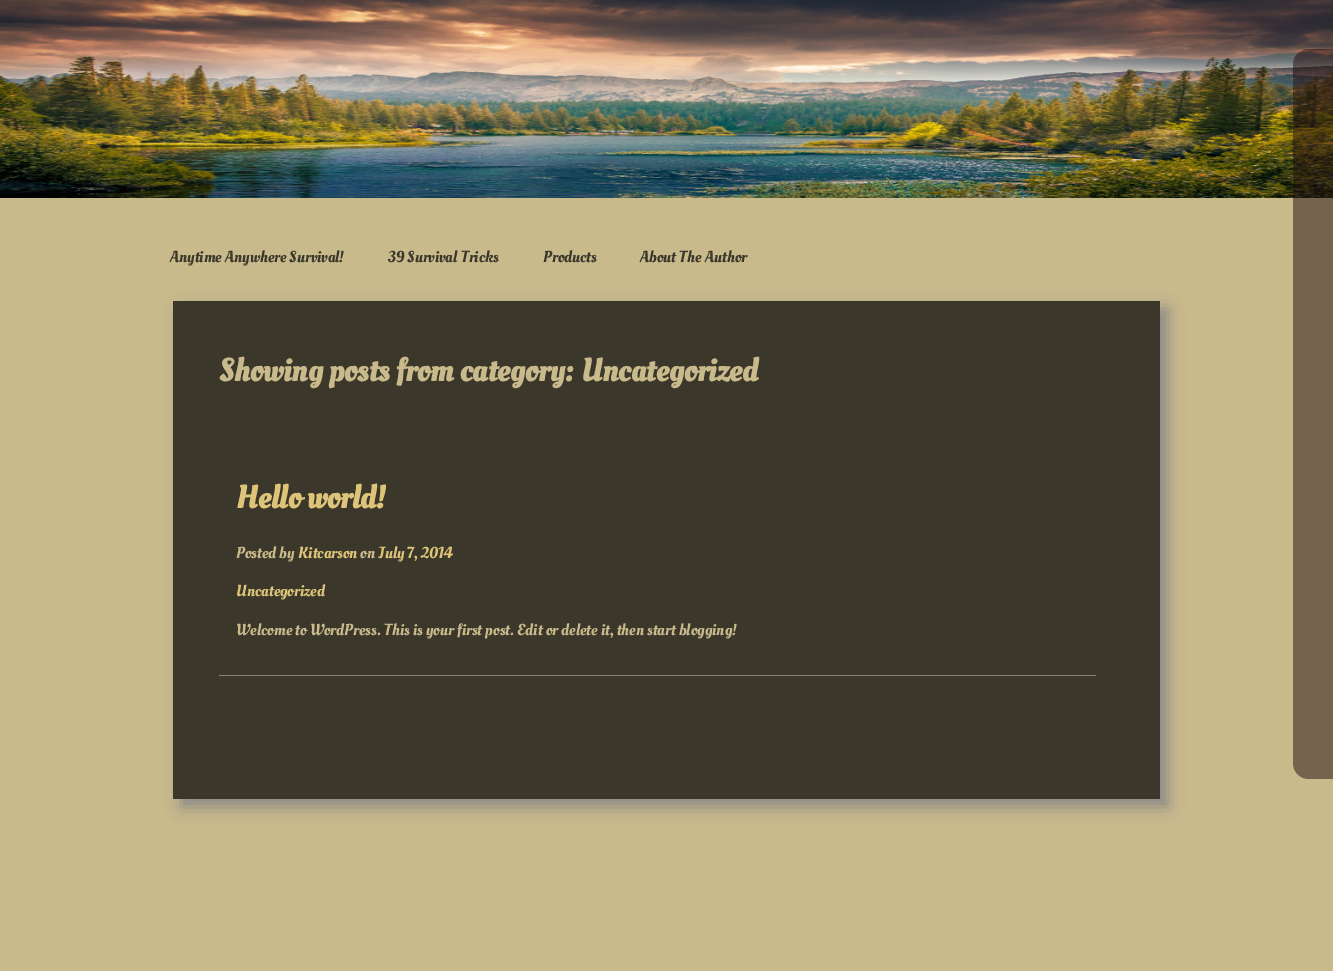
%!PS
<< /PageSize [1333 971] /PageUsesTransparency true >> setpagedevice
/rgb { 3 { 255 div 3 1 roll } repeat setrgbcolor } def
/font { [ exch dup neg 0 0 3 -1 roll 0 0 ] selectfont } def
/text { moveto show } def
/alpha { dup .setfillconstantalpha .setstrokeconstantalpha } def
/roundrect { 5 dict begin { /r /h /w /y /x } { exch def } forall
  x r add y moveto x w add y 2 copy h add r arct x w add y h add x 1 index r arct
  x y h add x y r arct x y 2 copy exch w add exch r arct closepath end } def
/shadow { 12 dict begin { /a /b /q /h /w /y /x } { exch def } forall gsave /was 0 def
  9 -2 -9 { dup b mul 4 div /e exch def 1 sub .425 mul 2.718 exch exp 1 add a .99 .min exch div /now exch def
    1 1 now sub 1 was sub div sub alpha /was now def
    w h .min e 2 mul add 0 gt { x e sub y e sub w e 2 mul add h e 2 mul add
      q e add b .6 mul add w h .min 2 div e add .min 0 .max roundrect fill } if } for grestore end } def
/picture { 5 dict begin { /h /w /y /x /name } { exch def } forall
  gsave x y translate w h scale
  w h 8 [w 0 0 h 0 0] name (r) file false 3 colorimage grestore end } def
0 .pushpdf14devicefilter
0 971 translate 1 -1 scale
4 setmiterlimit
201 186 139 rgb
0 0 1333 971 rectfill
(img_01.rgb) 0 0 1333 198 picture
136 136 136 rgb
181 309 987 498 0 8 1 shadow
59 55 43 rgb
173 301 987 498 rectfill
138 131 110 rgb
219 675 877 1 rectfill
0.5 alpha
34 14 16 rgb
1309 49 moveto 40 0 rlineto 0 730 rlineto -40 0 rlineto -9 0 -16 -7 -16 -16 rcurveto 0 -698 rlineto 0 -9 7 -16 16 -16 rcurveto closepath fill
/OleoScript-Regular 16 font
1 alpha
59 55 43 rgb
(Anytime Anywhere Survival!) 170 262 text
(39 Survival Tricks) 388 262 text
(Products) 543 262 text
(About The Author) 640 262 text
/OleoScript-Bold 32 font
201 186 139 rgb
(Showing posts from category: Uncategorized) 219 381 text
222 196 120 rgb
(Hello world!) 236 508 text
/OleoScript-Regular 16 font
201 186 139 rgb
(Posted by) 236 558 text
222 196 120 rgb
(Kitcarson) 298 558 text
201 186 139 rgb
(on) 360 558 text
222 196 120 rgb
(July 7, 2014) 378 558 text
(Uncategorized) 236 596 text
201 186 139 rgb
(Welcome to WordPress. This is your first post. Edit or delete it, then start blogging!) 236 635 text
.poppdf14devicefilter showpage
